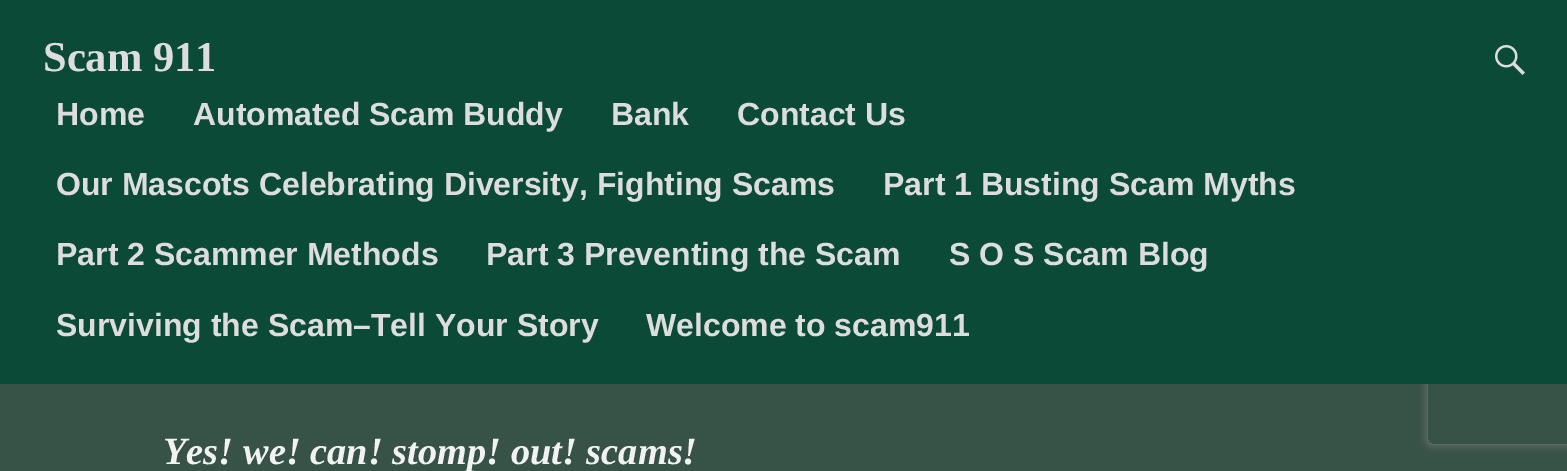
%!PS
<< /PageSize [1567 471] /PageUsesTransparency true >> setpagedevice
/rgb { 3 { 255 div 3 1 roll } repeat setrgbcolor } def
/font { [ exch dup neg 0 0 3 -1 roll 0 0 ] selectfont } def
/text { moveto show } def
/alpha { dup .setfillconstantalpha .setstrokeconstantalpha } def
/roundrect { 5 dict begin { /r /h /w /y /x } { exch def } forall
  x r add y moveto x w add y 2 copy h add r arct x w add y h add x 1 index r arct
  x y h add x y r arct x y 2 copy exch w add exch r arct closepath end } def
/shadow { 12 dict begin { /a /b /q /h /w /y /x } { exch def } forall gsave /was 0 def
  9 -2 -9 { dup b mul 4 div /e exch def 1 sub .425 mul 2.718 exch exp 1 add a .99 .min exch div /now exch def
    1 1 now sub 1 was sub div sub alpha /was now def
    w h .min e 2 mul add 0 gt { x e sub y e sub w e 2 mul add h e 2 mul add
      q e add b .6 mul add w h .min 2 div e add .min 0 .max roundrect fill } if } for grestore end } def
/picture { 5 dict begin { /h /w /y /x /name } { exch def } forall
  gsave x y translate w h scale
  w h 8 [w 0 0 h 0 0] name (r) file false 3 colorimage grestore end } def
0 .pushpdf14devicefilter
0 471 translate 1 -1 scale
4 setmiterlimit
55 82 71 rgb
0 0 1567 471 rectfill
gsave
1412 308 moveto 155 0 rlineto 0 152 rlineto -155 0 rlineto closepath 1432 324 moveto 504 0 rlineto 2 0 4 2 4 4 rcurveto 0 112 rlineto 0 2 -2 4 -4 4 rcurveto -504 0 rlineto -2 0 -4 -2 -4 -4 rcurveto 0 -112 rlineto 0 -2 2 -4 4 -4 rcurveto closepath eoclip newpath
128 128 128 rgb
1428 324 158 120 4 5 1 shadow
grestore
12 74 56 rgb
0 0 1567 384 rectfill
(img_01.rgb) 1495 45 30 30 picture
/LiberationSerif-Bold 42.5 font
221 221 221 rgb
(Scam 911) 43 71 text
/LiberationSans-Bold 32 font
(Home) 56 125 text
(Automated Scam Buddy) 193 125 text
(Bank) 611 125 text
(Contact Us) 737 125 text
(Our Mascots Celebrating Diversity, Fighting Scams) 56 195 text
(Part 1 Busting Scam Myths) 883 195 text
(Part 2 Scammer Methods) 56 265 text
(Part 3 Preventing the Scam) 486 265 text
(S O S Scam Blog) 949 265 text
(Surviving the Scam–Tell Your Story) 56 336 text
(Welcome to scam911) 646 336 text
/LiberationSerif-BoldItalic 38.4 font
242 242 242 rgb
(Yes! we! can! stomp! out! scams!) 163 464 text
.poppdf14devicefilter showpage
